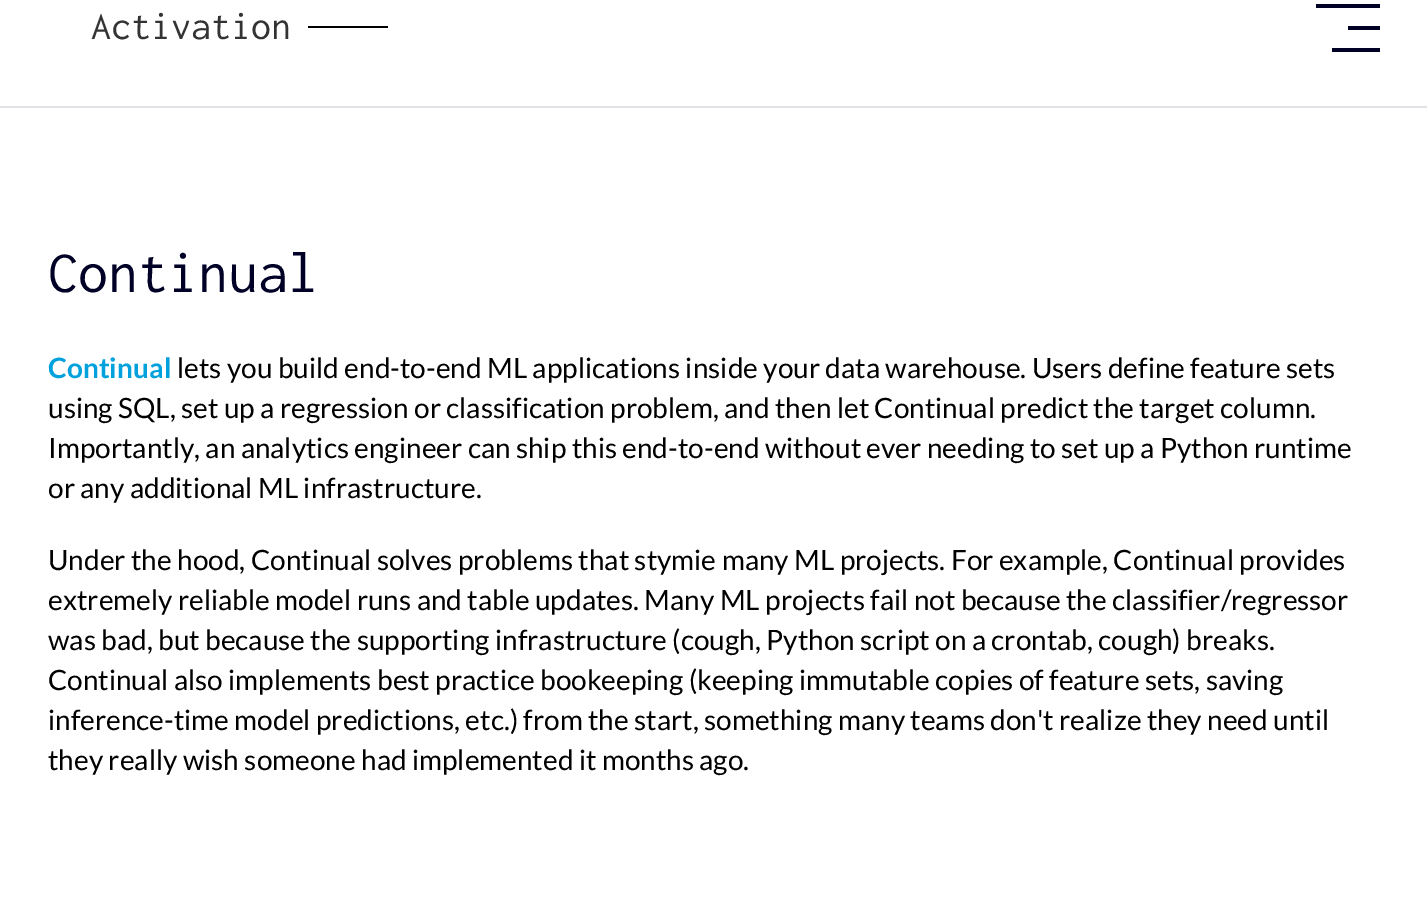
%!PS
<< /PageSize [1427 923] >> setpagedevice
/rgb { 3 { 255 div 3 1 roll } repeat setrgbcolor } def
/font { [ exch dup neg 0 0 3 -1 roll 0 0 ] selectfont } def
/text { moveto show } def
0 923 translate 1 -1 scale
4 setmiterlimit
255 255 255 rgb
0 0 1427 923 rectfill
226 227 231 rgb
0 106 1427 2 rectfill
0 0 0 rgb
308 26 80 2 rectfill
0 0 38 rgb
1316 4 64 4 rectfill
1348 26 32 4 rectfill
1332 48 48 4 rectfill
/Inconsolata-Regular 40 font
51 51 51 rgb
(Activation) 91 39 text
/Inconsolata-Regular 60 font
0 0 38 rgb
(Continual) 48 292 text
/Lato-Bold 28 font
1 161 221 rgb
(Continual) 48 378 text
/Lato-Regular 28 font
0 0 0 rgb
(lets you build end-to-end ML applications inside your data warehouse. Users define feature sets) 177 378 text
(using SQL, set up a regression or classification problem, and then let Continual predict the target column.) 48 418 text
(Importantly, an analytics engineer can ship this end-to-end without ever needing to set up a Python runtime) 48 458 text
(or any additional ML infrastructure.) 48 498 text
(Under the hood, Continual solves problems that stymie many ML projects. For example, Continual provides) 48 570 text
(extremely reliable model runs and table updates. Many ML projects fail not because the classifier/regressor) 48 610 text
(was bad, but because the supporting infrastructure \(cough, Python script on a crontab, cough\) breaks.) 48 650 text
(Continual also implements best practice bookeeping \(keeping immutable copies of feature sets, saving) 48 690 text
(inference-time model predictions, etc.\) from the start, something many teams don't realize they need until) 48 730 text
(they really wish someone had implemented it months ago.) 48 770 text
showpage
